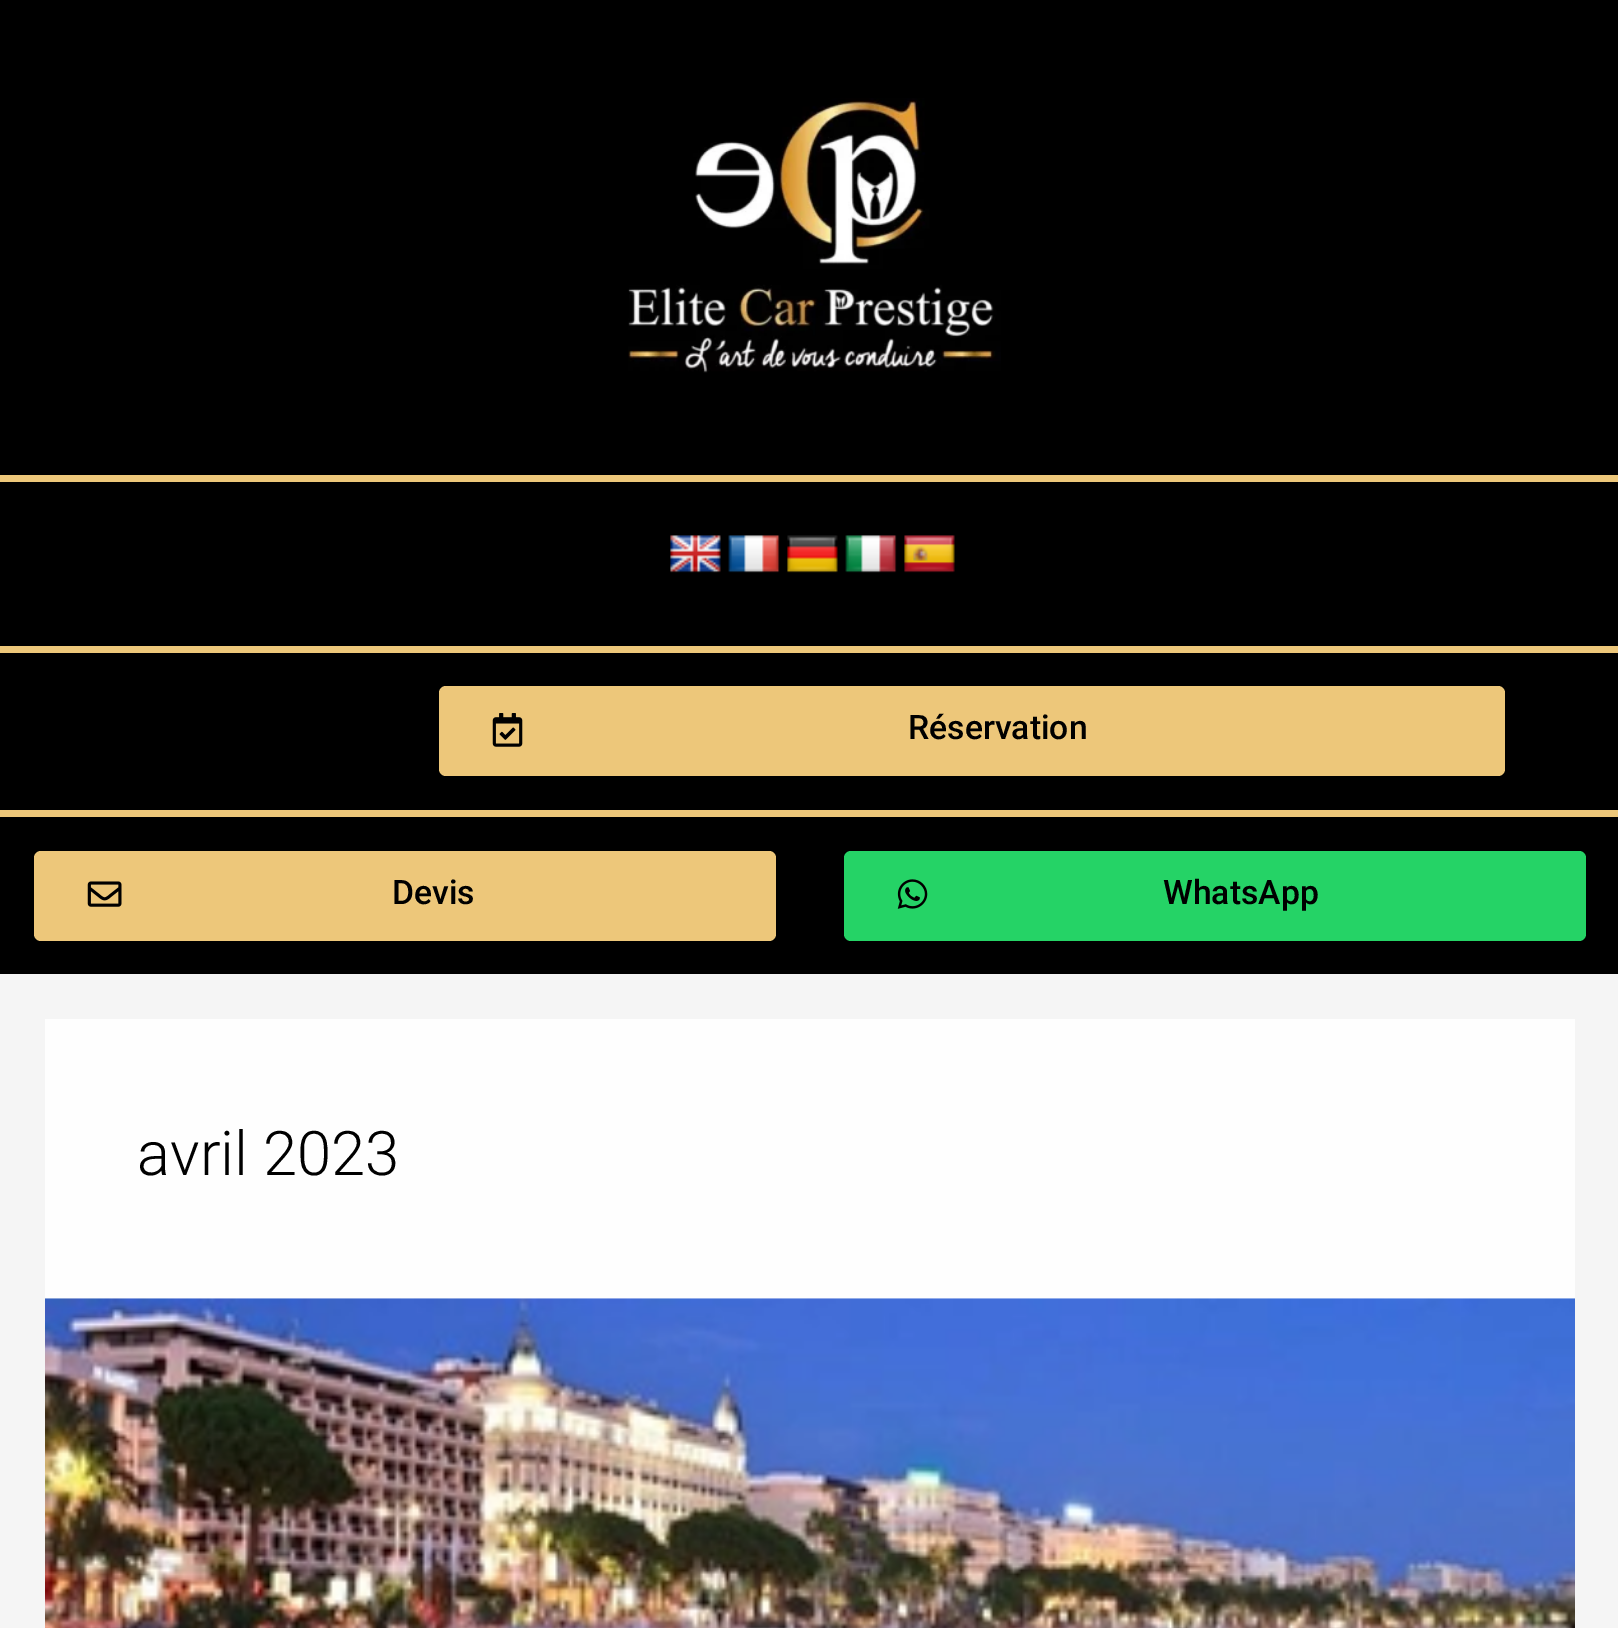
%!PS
<< /PageSize [1618 1628] >> setpagedevice
/rgb { 3 { 255 div 3 1 roll } repeat setrgbcolor } def
/font { [ exch dup neg 0 0 3 -1 roll 0 0 ] selectfont } def
/text { moveto show } def
/roundrect { 5 dict begin { /r /h /w /y /x } { exch def } forall
  x r add y moveto x w add y 2 copy h add r arct x w add y h add x 1 index r arct
  x y h add x y r arct x y 2 copy exch w add exch r arct closepath end } def
/picture { 5 dict begin { /h /w /y /x /name } { exch def } forall
  gsave x y translate w h scale
  w h 8 [w 0 0 h 0 0] name (r) file false 3 colorimage grestore end } def
0 1628 translate 1 -1 scale
4 setmiterlimit
245 245 245 rgb
0 0 1618 1628 rectfill
0 0 0 rgb
0 0 1618 475 rectfill
(img_01.rgb) 628 98 373 275 picture
0 482 1618 164 rectfill
237 199 122 rgb
0 475 1618 7 rectfill
(img_02.rgb) 670 535 51 38 picture
(img_03.rgb) 728 535 52 38 picture
(img_04.rgb) 787 535 51 38 picture
(img_05.rgb) 845 535 52 38 picture
(img_06.rgb) 904 535 51 38 picture
0 0 0 rgb
0 653 1618 157 rectfill
237 199 122 rgb
0 646 1618 7 rectfill
439 686 1066 90 7 roundrect fill
(img_07.rgb) 492 713 31 34 picture
0 0 0 rgb
0 817 1618 157 rectfill
237 199 122 rgb
0 810 1618 7 rectfill
34 851 742 90 7 roundrect fill
(img_08.rgb) 87 881 35 26 picture
37 211 102 rgb
844 851 742 90 7 roundrect fill
(img_09.rgb) 897 879 31 30 picture
254 254 254 rgb
45 1019 1530 280 rectfill
(img_10.rgb) 45 1298 1530 330 picture
/Roboto-Medium 33.75 font
0 0 0 rgb
(Réservation) 908 739 text
(Devis) 392 904 text
(WhatsApp) 1163 904 text
/Roboto-Light 61.5 font
(avril 2023) 137 1175 text
showpage
